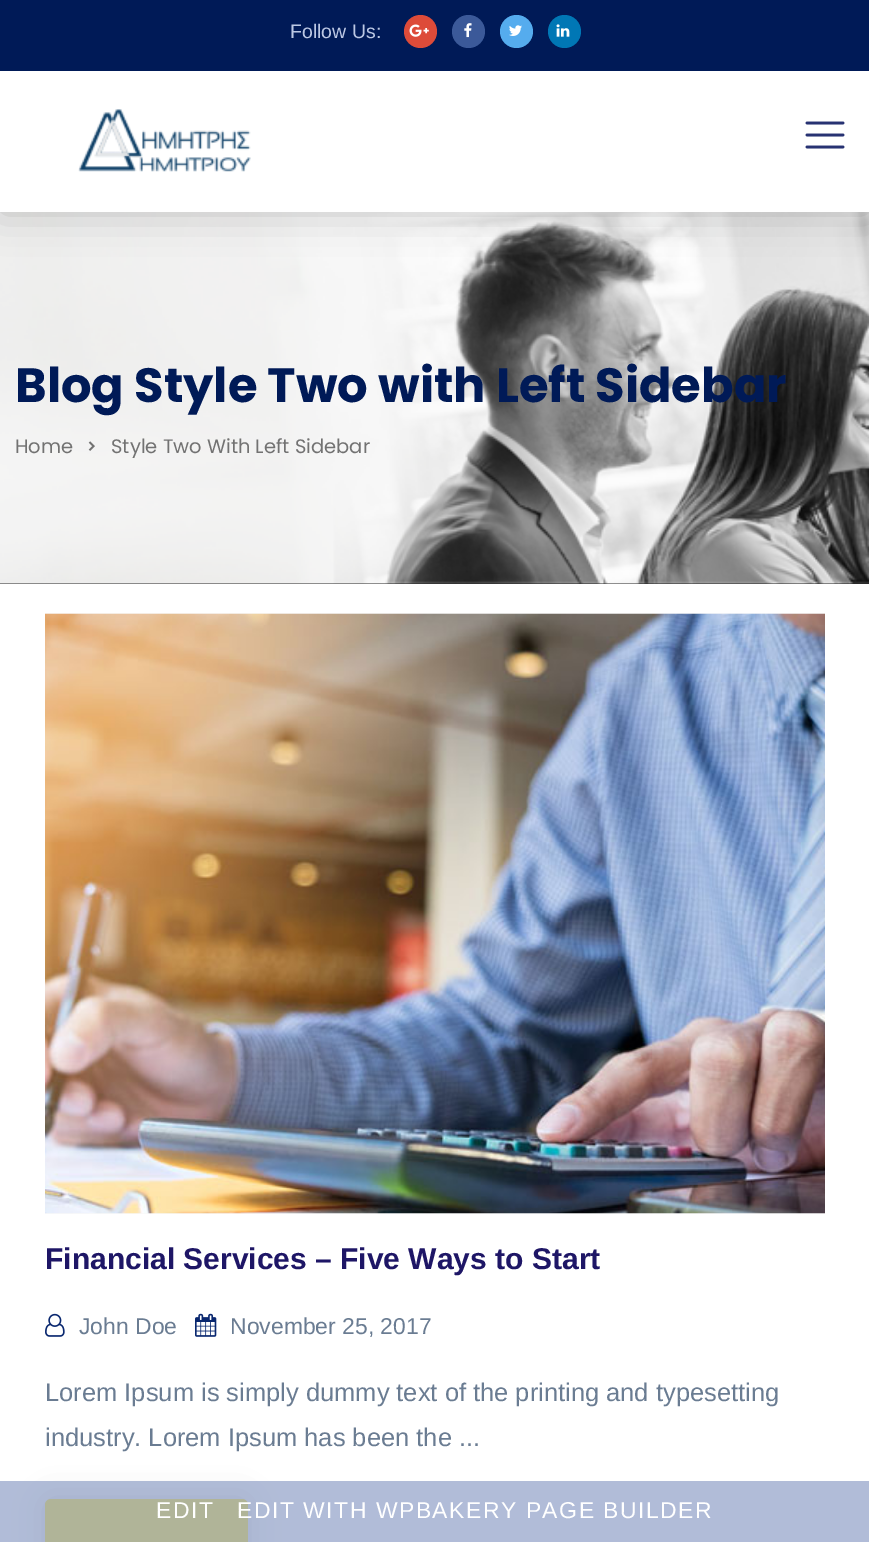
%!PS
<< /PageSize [869 1542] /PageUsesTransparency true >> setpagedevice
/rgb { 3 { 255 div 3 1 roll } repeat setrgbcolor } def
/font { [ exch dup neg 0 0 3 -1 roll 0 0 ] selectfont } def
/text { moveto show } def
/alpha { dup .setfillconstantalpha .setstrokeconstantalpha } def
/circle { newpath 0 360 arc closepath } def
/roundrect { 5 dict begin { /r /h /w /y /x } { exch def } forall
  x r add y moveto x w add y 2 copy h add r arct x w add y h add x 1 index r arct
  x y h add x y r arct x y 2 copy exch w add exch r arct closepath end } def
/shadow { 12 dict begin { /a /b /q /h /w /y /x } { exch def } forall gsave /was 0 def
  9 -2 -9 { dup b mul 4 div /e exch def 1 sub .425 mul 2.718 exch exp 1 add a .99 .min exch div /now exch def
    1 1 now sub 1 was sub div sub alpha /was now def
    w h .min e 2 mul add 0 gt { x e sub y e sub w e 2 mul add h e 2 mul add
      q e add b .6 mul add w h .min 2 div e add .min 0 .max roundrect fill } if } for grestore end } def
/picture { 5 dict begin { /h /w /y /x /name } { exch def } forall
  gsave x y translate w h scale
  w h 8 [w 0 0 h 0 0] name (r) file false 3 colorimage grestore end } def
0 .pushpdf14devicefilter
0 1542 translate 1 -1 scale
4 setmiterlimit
255 255 255 rgb
0 0 869 1542 rectfill
37 37 37 rgb
0 583 869 1 rectfill
(img_07.rgb) 0 212 869 372 picture
5 6 6 rgb
0 0 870 212 0 20 0.22 shadow
0 26 87 rgb
0 0 869 71 rectfill
221 75 57 rgb
420.5 31.5 16.5 circle fill
(img_01.rgb) 409 24 20 13 picture
59 89 153 rgb
468.5 31.5 16.5 circle fill
(img_02.rgb) 464 23 8 15 picture
85 172 238 rgb
516.5 31.5 16.5 circle fill
(img_03.rgb) 509 25 13 11 picture
0 119 181 rgb
564.5 31.5 16.5 circle fill
(img_04.rgb) 556 24 14 13 picture
255 255 255 rgb
0 71 869 141 rectfill
(img_05.rgb) 78 109 173 63 picture
(img_06.rgb) 805 121 40 28 picture
(img_08.rgb) 88 441 7 10 picture
(img_09.rgb) 45 613 780 601 picture
(img_10.rgb) 45 613 780 601 picture
(img_11.rgb) 45 1313 20 24 picture
(img_12.rgb) 195 1313 22 24 picture
0 0 0 rgb
45 1499 203 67 6 15 0.15 shadow
253 228 40 rgb
45 1499 203 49 6 roundrect fill
0.7 alpha
144 160 199 rgb
0 1481 869 61 rectfill
/LiberationSans-Regular 19.5 font
1 alpha
188 200 228 rgb
(Follow Us:) 290 38 text
/Poppins-Bold 48 font
0 26 87 rgb
(Blog Style Two with Left Sidebar) 15 402 text
/Poppins-Regular 19.5 font
114 114 114 rgb
(Home) 15 453 text
(Style Two With Left Sidebar) 111 453 text
/LiberationSans-Bold 30 font
30 22 102 rgb
(Financial Services – Five Ways to Start) 45 1269 text
/LiberationSans-Regular 22.95 font
106 124 146 rgb
(John Doe) 79 1334 text
(November 25, 2017) 230 1334 text
/LiberationSans-Regular 25.5 font
(Lorem Ipsum is simply dummy text of the printing and typesetting) 45 1401 text
(industry. Lorem Ipsum has been the ...) 45 1446 text
/LiberationSans-Regular 22.95 font
255 255 255 rgb
156 1518 moveto 1.5 0 (EDIT) ashow
237 1518 moveto 1.5 0 (EDIT WITH WPBAKERY PAGE BUILDER) ashow
.poppdf14devicefilter showpage
